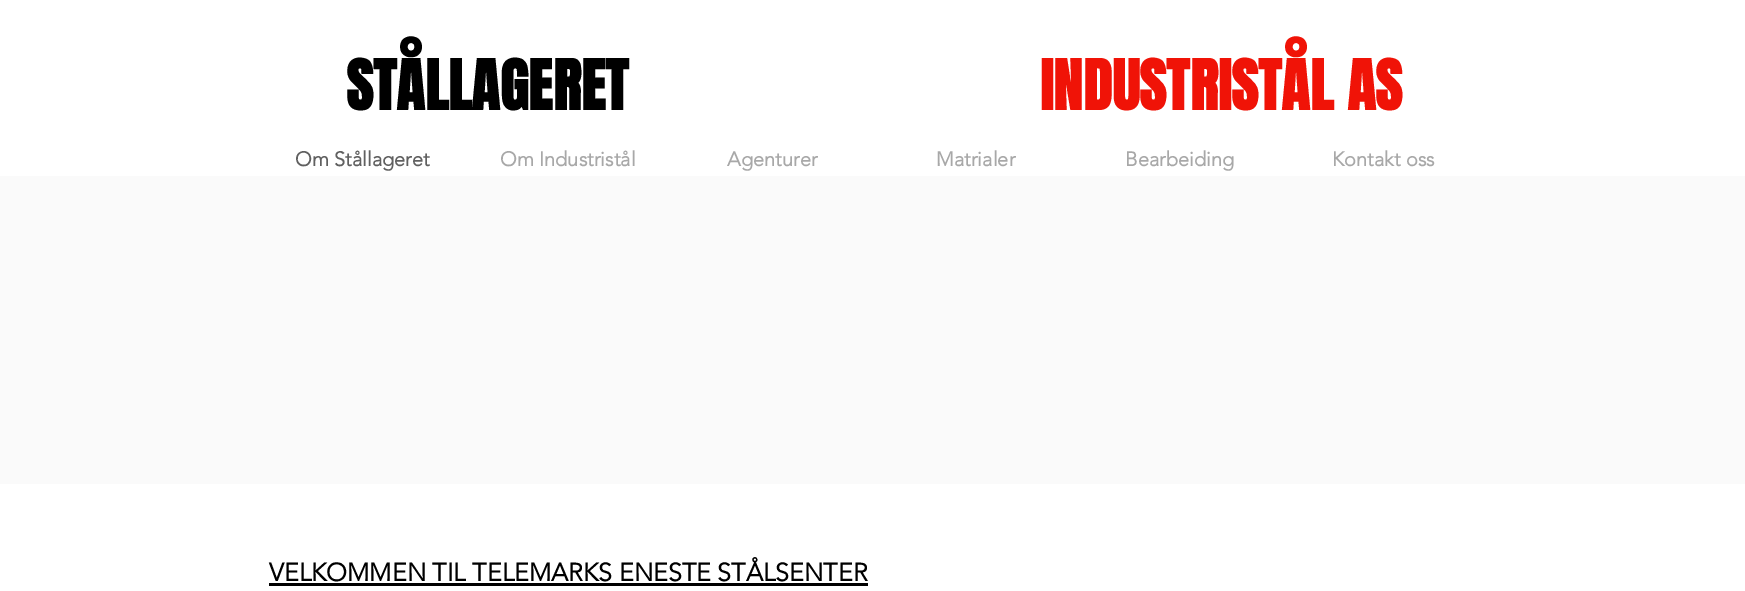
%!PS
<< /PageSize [1745 591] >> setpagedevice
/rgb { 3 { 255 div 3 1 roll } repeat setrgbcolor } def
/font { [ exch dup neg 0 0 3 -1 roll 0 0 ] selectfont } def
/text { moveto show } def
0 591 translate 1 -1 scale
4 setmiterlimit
255 255 255 rgb
0 0 1745 591 rectfill
250 250 250 rgb
0 176 1745 308 rectfill
0 0 0 rgb
269 583 599 3 rectfill
/Anton-Bold 58.75 font
(STÅLLAGERET) 346 110 text
240 19 7 rgb
(INDUSTRISTÅL AS) 1040 110 text
/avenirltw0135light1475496-Bold 20 font
96 96 96 rgb
(Om Stållageret) 295 166 text
168 168 168 rgb
(Om Industristål) 500 166 text
(Agenturer) 727 166 text
(Matrialer) 936 166 text
(Bearbeiding) 1125 166 text
(Kontakt oss) 1332 166 text
/avenirltw0135light1475496-Bold 25 font
0 0 0 rgb
(VELKOMMEN TIL TELEMARKS ENESTE STÅLSENTER) 269 581 text
showpage
